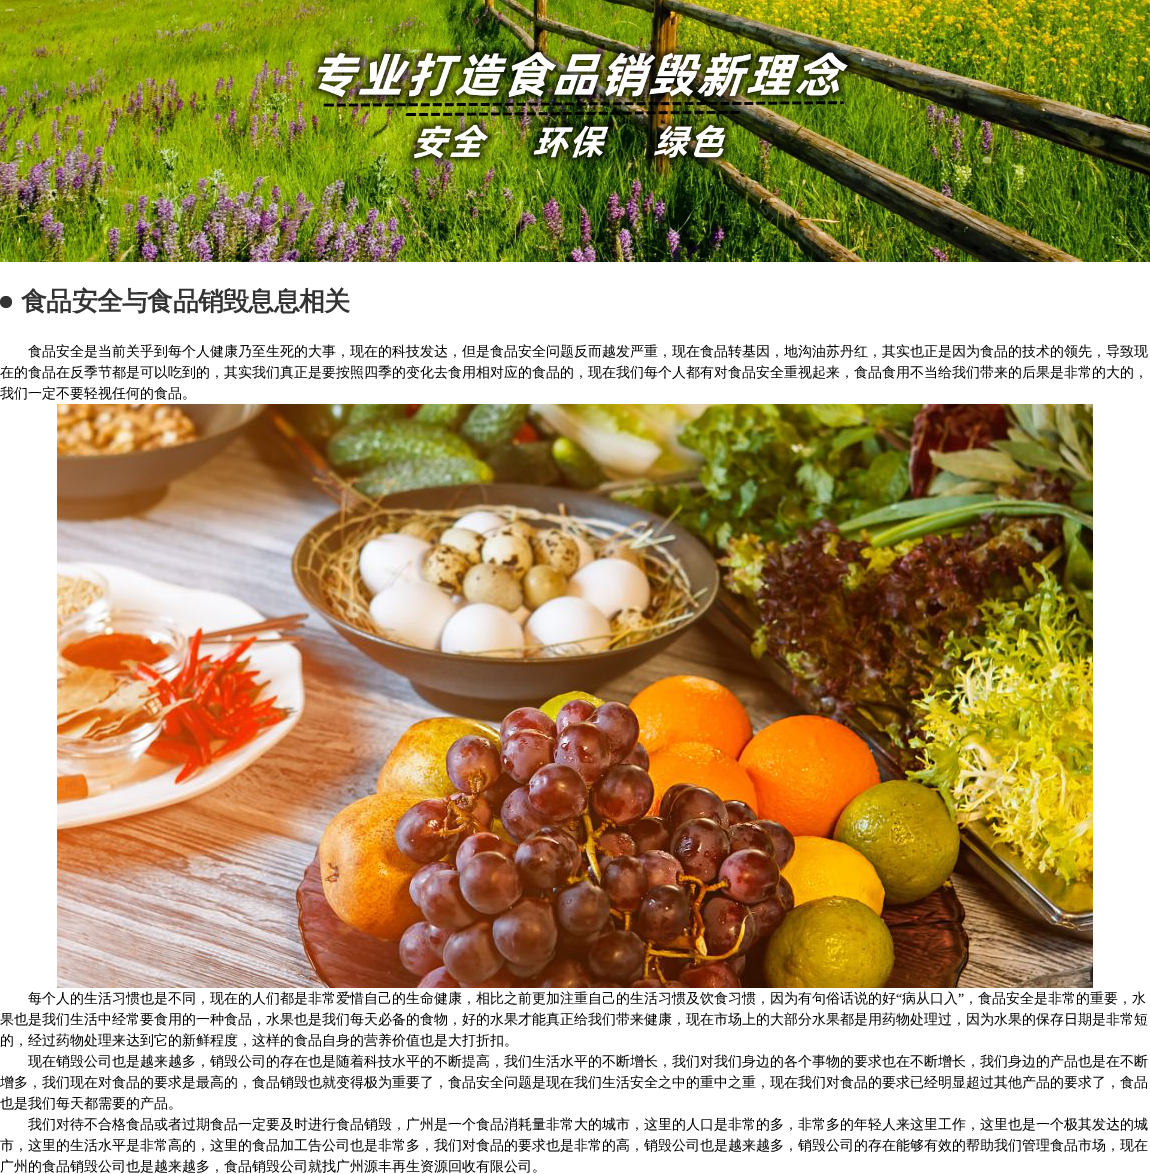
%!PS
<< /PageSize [1150 1174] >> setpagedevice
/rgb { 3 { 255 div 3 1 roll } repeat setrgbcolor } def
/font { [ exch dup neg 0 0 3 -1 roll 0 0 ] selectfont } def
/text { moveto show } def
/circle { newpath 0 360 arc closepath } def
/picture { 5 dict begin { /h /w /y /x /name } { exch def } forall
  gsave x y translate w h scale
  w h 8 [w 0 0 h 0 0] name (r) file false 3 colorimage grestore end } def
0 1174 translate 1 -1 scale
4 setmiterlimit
255 255 255 rgb
0 0 1150 1174 rectfill
(img_01.rgb) 0 0 1150 262 picture
51 51 51 rgb
6 302 6 circle fill
(img_02.rgb) 57 404 1036 584 picture
/WenQuanYiZenHei-Bold 26 font
21 310 moveto -0.75 0 (食品安全与食品销毁息息相关) ashow
/WenQuanYiZenHei-Medium 14 font
0 0 0 rgb
(食品安全是当前关乎到每个人健康乃至生死的大事，现在的科技发达，但是食品安全问题反而越发严重，现在食品转基因，地沟油苏丹红，其实也正是因为食品的技术的领先，导致现) 28 356 text
(在的食品在反季节都是可以吃到的，其实我们真正是要按照四季的变化去食用相对应的食品的，现在我们每个人都有对食品安全重视起来，食品食用不当给我们带来的后果是非常的大的，) 0 377 text
(我们一定不要轻视任何的食品。) 0 398 text
(每个人的生活习惯也是不同，现在的人们都是非常爱惜自己的生命健康，相比之前更加注重自己的生活习惯及饮食习惯，因为有句俗话说的好) 28 1003 text
/LiberationSerif-Regular 14 font
(“) 896 1003 text
/WenQuanYiZenHei-Medium 14 font
(病从口入) 902 1003 text
/LiberationSerif-Regular 14 font
(”) 958 1003 text
/WenQuanYiZenHei-Medium 14 font
(，食品安全是非常的重要，水) 964 1003 text
(果也是我们生活中经常要食用的一种食品，水果也是我们每天必备的食物，好的水果才能真正给我们带来健康，现在市场上的大部分水果都是用药物处理过，因为水果的保存日期是非常短) 0 1024 text
(的，经过药物处理来达到它的新鲜程度，这样的食品自身的营养价值也是大打折扣。) 0 1045 text
(现在销毁公司也是越来越多，销毁公司的存在也是随着科技水平的不断提高，我们生活水平的不断增长，我们对我们身边的各个事物的要求也在不断增长，我们身边的产品也是在不断) 28 1066 text
(增多，我们现在对食品的要求是最高的，食品销毁也就变得极为重要了，食品安全问题是现在我们生活安全之中的重中之重，现在我们对食品的要求已经明显超过其他产品的要求了，食品) 0 1087 text
(也是我们每天都需要的产品。) 0 1108 text
(我们对待不合格食品或者过期食品一定要及时进行食品销毁，广州是一个食品消耗量非常大的城市，这里的人口是非常的多，非常多的年轻人来这里工作，这里也是一个极其发达的城) 28 1129 text
(市，这里的生活水平是非常高的，这里的食品加工告公司也是非常多，我们对食品的要求也是非常的高，销毁公司也是越来越多，销毁公司的存在能够有效的帮助我们管理食品市场，现在) 0 1150 text
(广州的食品销毁公司也是越来越多，食品销毁公司就找广州源丰再生资源回收有限公司。) 0 1171 text
showpage
